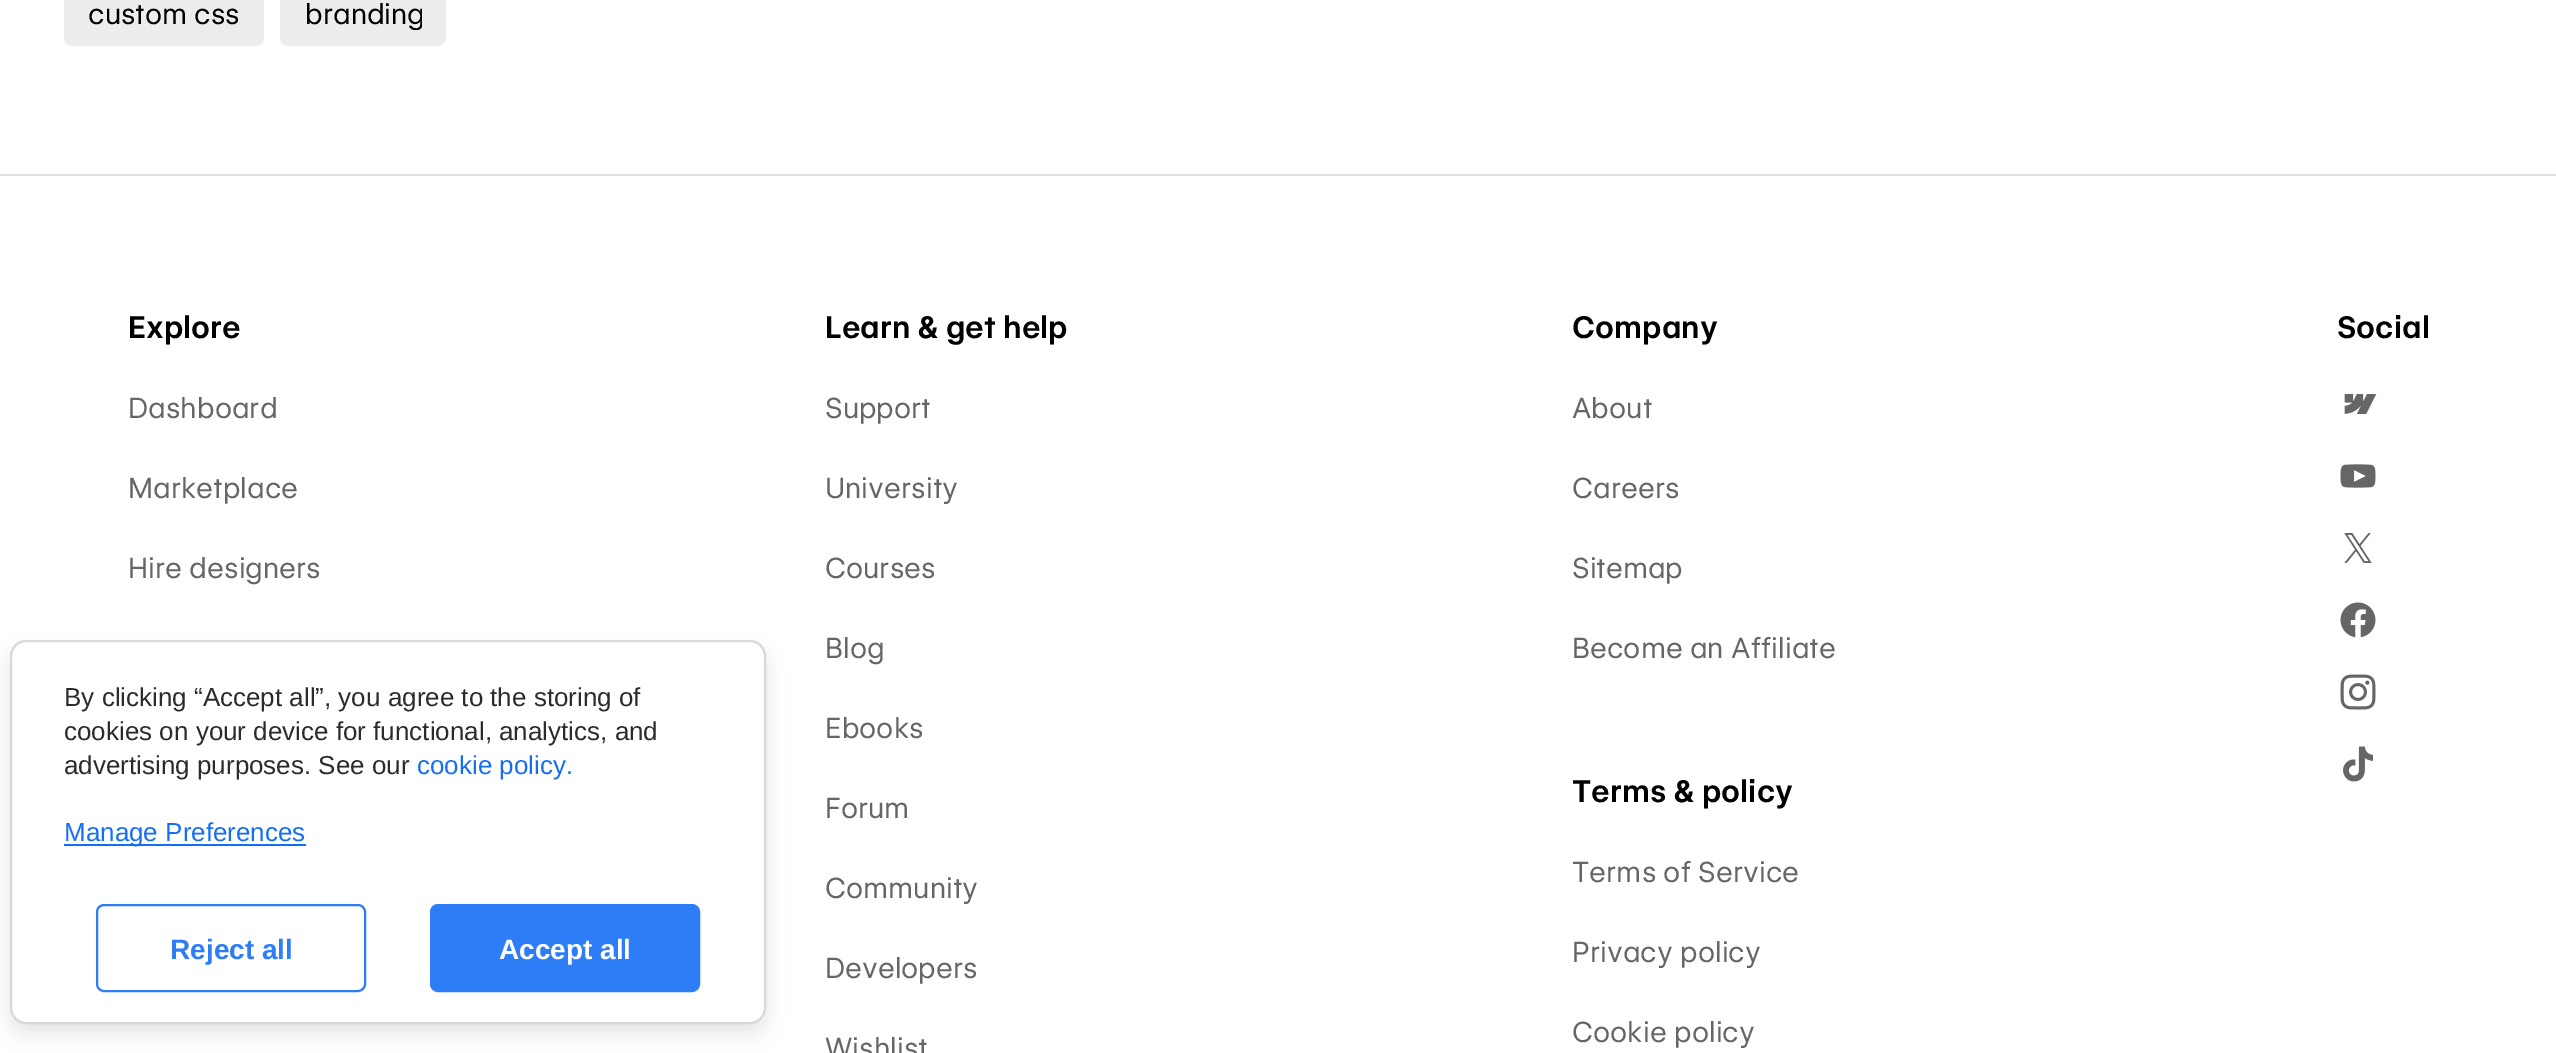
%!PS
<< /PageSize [2556 1053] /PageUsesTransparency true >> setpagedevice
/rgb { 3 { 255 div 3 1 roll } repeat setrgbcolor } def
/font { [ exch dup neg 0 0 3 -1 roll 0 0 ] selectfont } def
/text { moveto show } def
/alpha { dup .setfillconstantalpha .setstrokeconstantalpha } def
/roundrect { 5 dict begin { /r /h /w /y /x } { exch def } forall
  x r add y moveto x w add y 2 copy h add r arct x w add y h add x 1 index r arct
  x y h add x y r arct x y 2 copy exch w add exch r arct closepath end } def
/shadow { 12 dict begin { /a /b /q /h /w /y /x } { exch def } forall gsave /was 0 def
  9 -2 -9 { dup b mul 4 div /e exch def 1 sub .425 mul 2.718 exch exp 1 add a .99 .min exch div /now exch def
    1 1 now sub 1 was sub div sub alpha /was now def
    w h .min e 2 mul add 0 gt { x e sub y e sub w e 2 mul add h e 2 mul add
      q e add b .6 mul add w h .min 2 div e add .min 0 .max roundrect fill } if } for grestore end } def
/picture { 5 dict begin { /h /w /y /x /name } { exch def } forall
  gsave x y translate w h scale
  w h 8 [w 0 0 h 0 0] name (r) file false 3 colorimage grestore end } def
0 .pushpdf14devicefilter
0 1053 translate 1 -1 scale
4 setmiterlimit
255 255 255 rgb
0 0 2556 1053 rectfill
237 237 237 rgb
64 -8 200 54 8 roundrect fill
280 -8 166 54 8 roundrect fill
224 224 224 rgb
0 174 2556 2 rectfill
(img_01.rgb) 2344 394 33 20 picture
(img_02.rgb) 2340 464 36 24 picture
(img_03.rgb) 2344 533 28 30 picture
(img_04.rgb) 2340 602 36 36 picture
(img_05.rgb) 2340 674 36 36 picture
(img_06.rgb) 2343 746 30 36 picture
0 0 0 rgb
10 650 756 384 16 10 0.1 shadow
255 255 255 rgb
11 641 754 382 15 roundrect gsave fill grestore
216 216 216 rgb
2 setlinewidth
stroke
20 110 245 rgb
64 844 242 2 rectfill
44 125 246 rgb
97 905 268 86 7 roundrect stroke
431 905 268 86 7 roundrect gsave fill grestore
stroke
/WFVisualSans-Regular 28 font
0 0 0 rgb
(custom css) 88 24 text
gsave
304 0 118 30 rectclip
(branding) 305 24 text
grestore
/WFVisualSans-SemiBold 30 font
(Explore) 128 338 text
/WFVisualSans-Regular 28 font
102 102 102 rgb
(Dashboard) 128 418 text
(Marketplace) 128 498 text
(Hire designers) 128 578 text
/WFVisualSans-SemiBold 30 font
0 0 0 rgb
(Learn & get help) 825 338 text
/WFVisualSans-Regular 28 font
102 102 102 rgb
(Support) 825 418 text
(University) 825 498 text
(Courses) 825 578 text
(Blog) 825 658 text
(Ebooks) 825 738 text
(Forum) 825 818 text
(Community) 825 898 text
(Developers) 825 978 text
(Wishlist) 825 1058 text
/WFVisualSans-SemiBold 30 font
0 0 0 rgb
(Company) 1572 338 text
/WFVisualSans-Regular 28 font
102 102 102 rgb
(About) 1572 418 text
(Careers) 1572 498 text
(Sitemap) 1572 578 text
(Become an Affiliate) 1572 658 text
/WFVisualSans-SemiBold 30 font
0 0 0 rgb
(Terms & policy) 1572 802 text
/WFVisualSans-Regular 28 font
102 102 102 rgb
(Terms of Service) 1572 882 text
(Privacy policy) 1572 962 text
(Cookie policy) 1572 1042 text
/WFVisualSans-SemiBold 30 font
0 0 0 rgb
(Social) 2337 338 text
/LiberationSans-Regular 26 font
43 43 43 rgb
(By clicking “Accept all”, you agree to the storing of) 64 706 text
(cookies on your device for functional, analytics, and) 64 740 text
(advertising purposes. See our) 64 774 text
20 110 245 rgb
(cookie policy.) 417 774 text
(Manage Preferences) 64 841 text
/LiberationSans-Bold 28 font
44 125 246 rgb
(Reject all) 170 959 text
255 255 255 rgb
(Accept all) 499 959 text
.poppdf14devicefilter showpage
